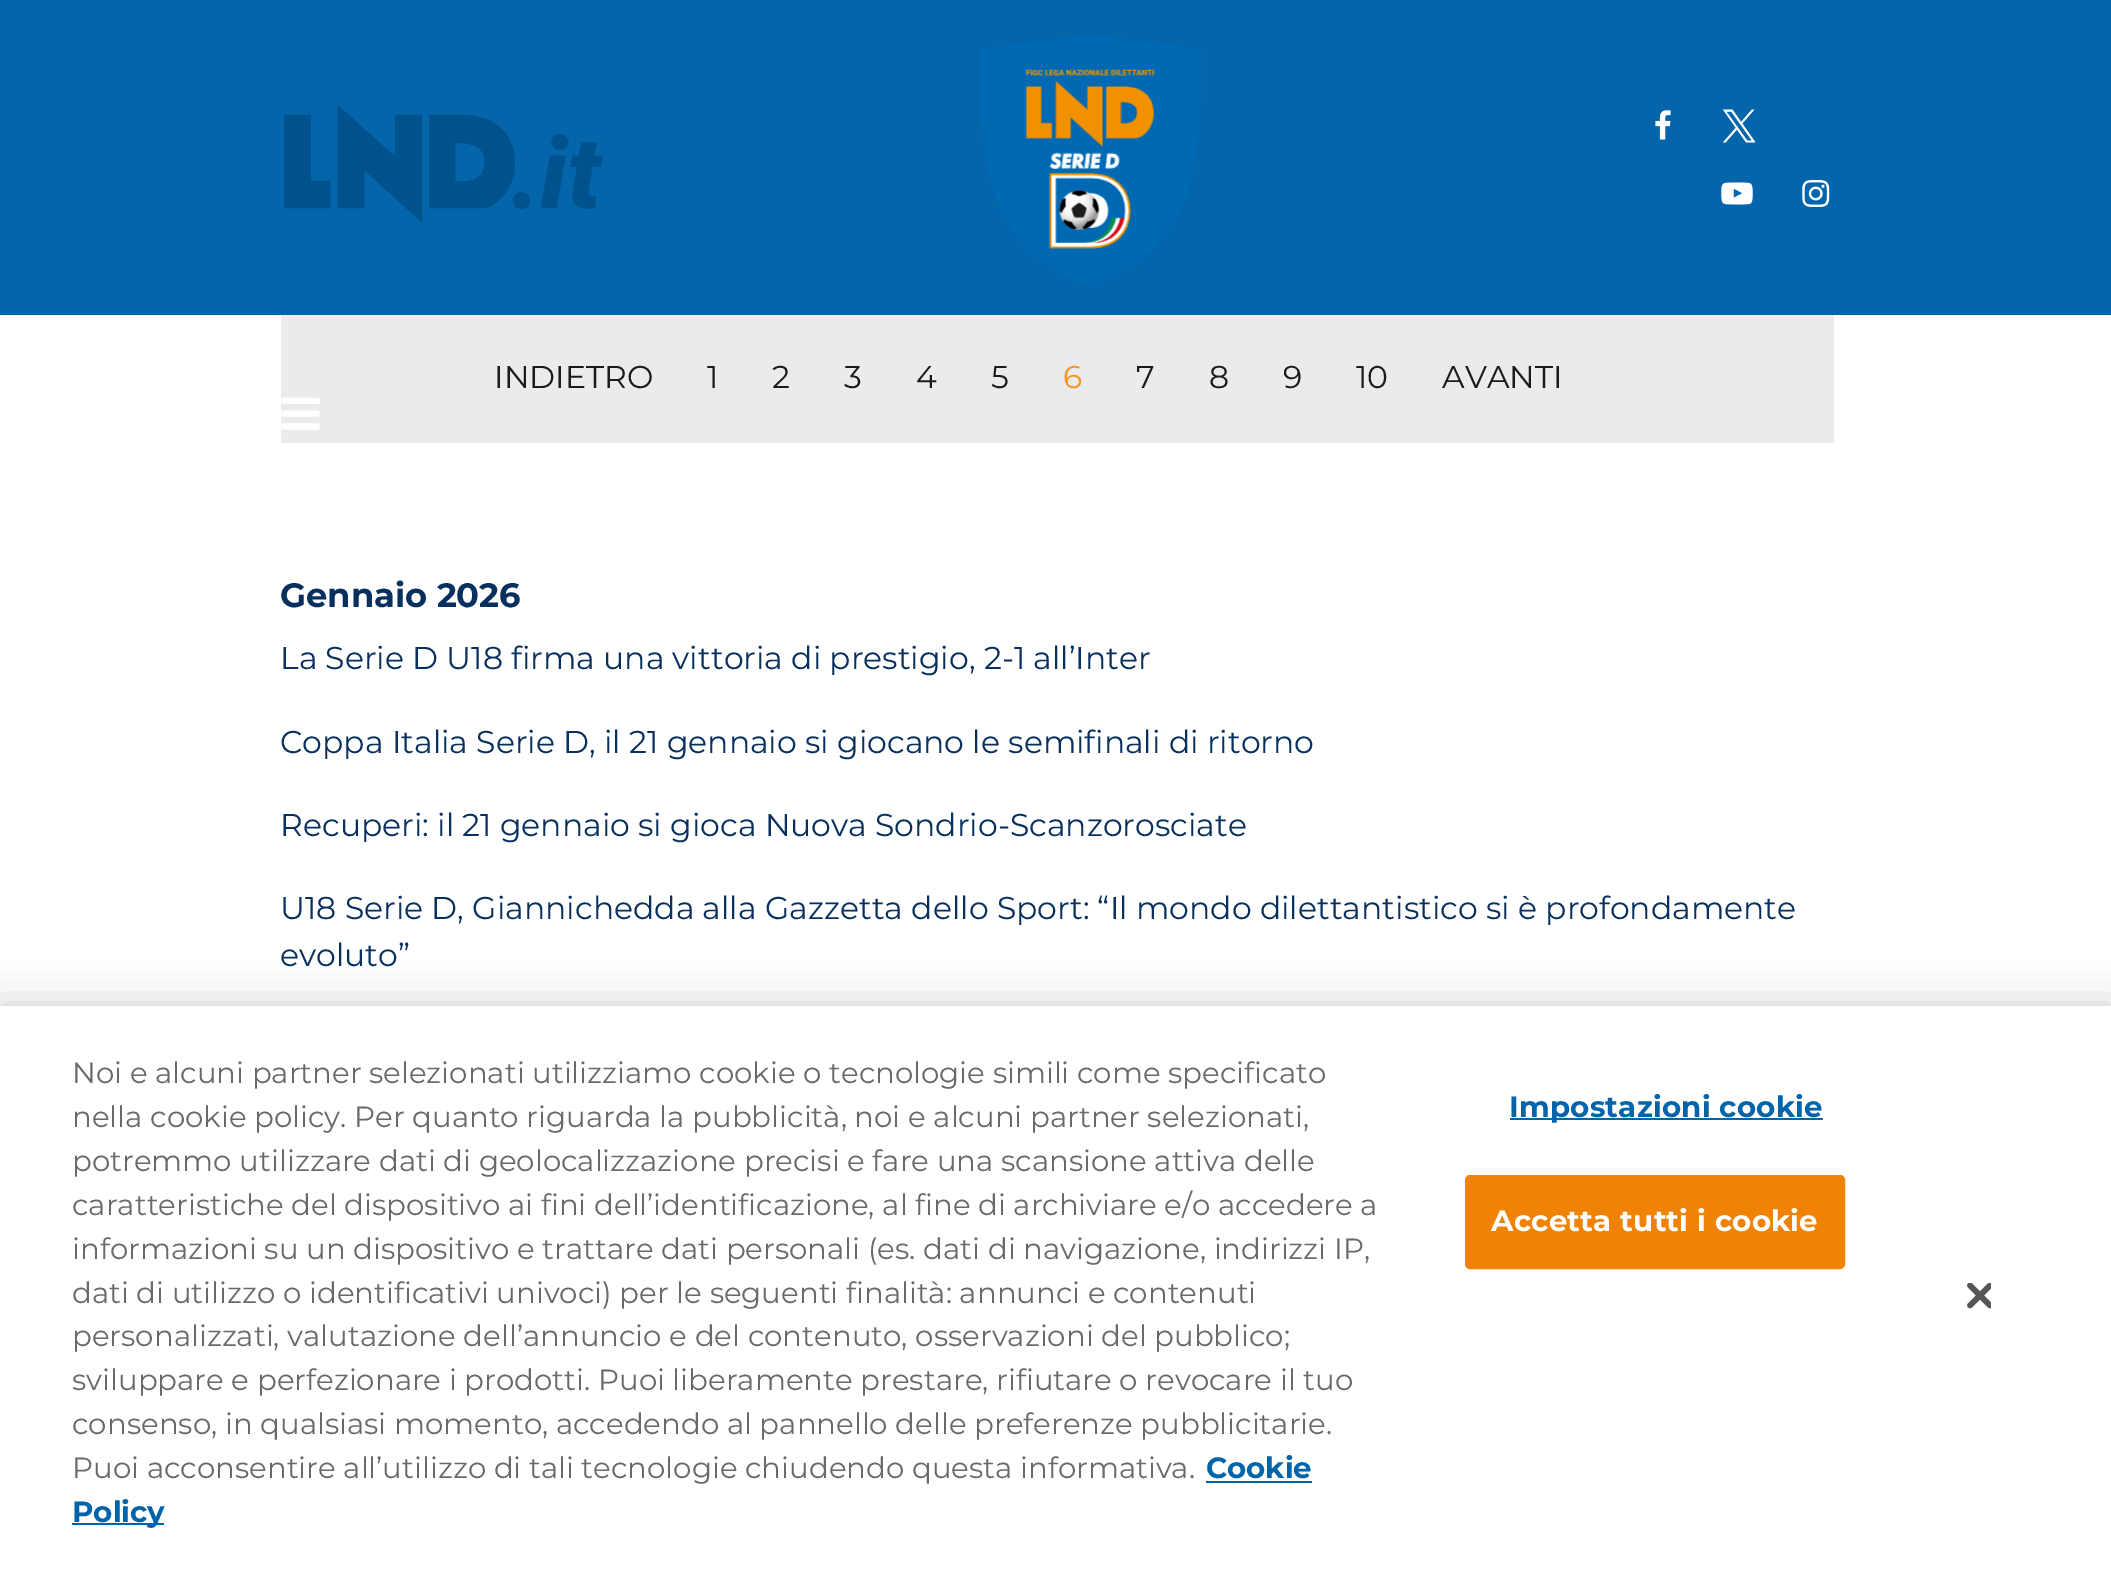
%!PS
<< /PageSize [2111 1585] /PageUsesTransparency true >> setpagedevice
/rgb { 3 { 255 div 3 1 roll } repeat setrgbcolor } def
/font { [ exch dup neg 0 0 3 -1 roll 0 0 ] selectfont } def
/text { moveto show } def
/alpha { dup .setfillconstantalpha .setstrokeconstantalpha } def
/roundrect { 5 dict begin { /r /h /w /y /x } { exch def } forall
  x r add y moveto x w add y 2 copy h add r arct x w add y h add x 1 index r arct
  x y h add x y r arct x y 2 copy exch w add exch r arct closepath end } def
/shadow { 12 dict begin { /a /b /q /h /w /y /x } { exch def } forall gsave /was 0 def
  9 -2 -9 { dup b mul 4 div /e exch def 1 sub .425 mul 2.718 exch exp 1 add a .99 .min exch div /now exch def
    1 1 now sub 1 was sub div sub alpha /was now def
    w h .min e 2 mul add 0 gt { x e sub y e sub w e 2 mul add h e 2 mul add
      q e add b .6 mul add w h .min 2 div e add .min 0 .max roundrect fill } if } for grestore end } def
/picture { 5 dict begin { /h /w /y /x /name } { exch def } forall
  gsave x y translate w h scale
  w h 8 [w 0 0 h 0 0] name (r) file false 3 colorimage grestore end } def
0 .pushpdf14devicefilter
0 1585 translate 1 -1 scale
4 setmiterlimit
255 255 255 rgb
0 0 2111 1585 rectfill
4 101 171 rgb
0 0 2111 315 rectfill
(img_01.rgb) 284 104 319 119 picture
(img_02.rgb) 979 34 223 254 picture
(img_03.rgb) 1655 110 16 30 picture
(img_04.rgb) 1722 109 33 34 picture
(img_05.rgb) 1721 182 32 23 picture
(img_06.rgb) 1802 180 28 27 picture
235 235 235 rgb
281 315 1553 128 rectfill
(img_07.rgb) 281 397 39 33 picture
0 0 0 rgb
0 1006 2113 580 0 20 0.2 shadow
255 255 255 rgb
0 1006 2111 579 rectfill
0 100 171 rgb
1206 1481 106 2 rectfill
72 1523 92 2 rectfill
1510 1118 313 2 rectfill
240 130 5 rgb
1466 1176 378 92 4 roundrect gsave fill grestore
2 setlinewidth
stroke
(img_08.rgb) 1967 1283 24 26 picture
/Montserrat-Regular 31.5 font
27 27 27 rgb
(INDIETRO) 494 388 text
(1) 707 388 text
(2) 772 388 text
(3) 844 388 text
(4) 916 388 text
(5) 991 388 text
247 148 29 rgb
(6) 1063 388 text
27 27 27 rgb
(7) 1136 388 text
(8) 1209 388 text
(9) 1283 388 text
(10) 1356 388 text
(AVANTI) 1442 388 text
/Montserrat-Bold 33.75 font
8 48 94 rgb
(Gennaio 2026) 280 607 text
/Montserrat-Regular 31.5 font
(La Serie D U18 firma una vittoria di prestigio, 2-1 all’Inter) 280 669 text
(Coppa Italia Serie D, il 21 gennaio si giocano le semifinali di ritorno) 280 753 text
(Recuperi: il 21 gennaio si gioca Nuova Sondrio-Scanzorosciate) 280 836 text
(U18 Serie D, Giannichedda alla Gazzetta dello Sport: “Il mondo dilettantistico si è profondamente) 280 919 text
(evoluto”) 280 966 text
/Montserrat-Regular 29.25 font
105 105 105 rgb
(Noi e alcuni partner selezionati utilizziamo cookie o tecnologie simili come specificato) 72 1083 text
(nella cookie policy. Per quanto riguarda la pubblicità, noi e alcuni partner selezionati,) 72 1127 text
(potremmo utilizzare dati di geolocalizzazione precisi e fare una scansione attiva delle) 72 1171 text
(caratteristiche del dispositivo ai fini dell’identificazione, al fine di archiviare e/o accedere a) 72 1215 text
(informazioni su un dispositivo e trattare dati personali \(es. dati di navigazione, indirizzi IP,) 72 1259 text
(dati di utilizzo o identificativi univoci\) per le seguenti finalità: annunci e contenuti) 72 1303 text
(personalizzati, valutazione dell’annuncio e del contenuto, osservazioni del pubblico;) 72 1346 text
(sviluppare e perfezionare i prodotti. Puoi liberamente prestare, rifiutare o revocare il tuo) 72 1390 text
(consenso, in qualsiasi momento, accedendo al pannello delle preferenze pubblicitarie.) 72 1434 text
(Puoi acconsentire all’utilizzo di tali tecnologie chiudendo questa informativa.) 72 1478 text
/Montserrat-Bold 29.25 font
0 100 171 rgb
(Cookie) 1206 1478 text
(Policy) 72 1522 text
1509 1117 moveto 0.25 0 (Impostazioni cookie) ashow
255 255 255 rgb
1491 1231 moveto 0.25 0 (Accetta tutti i cookie) ashow
.poppdf14devicefilter showpage
